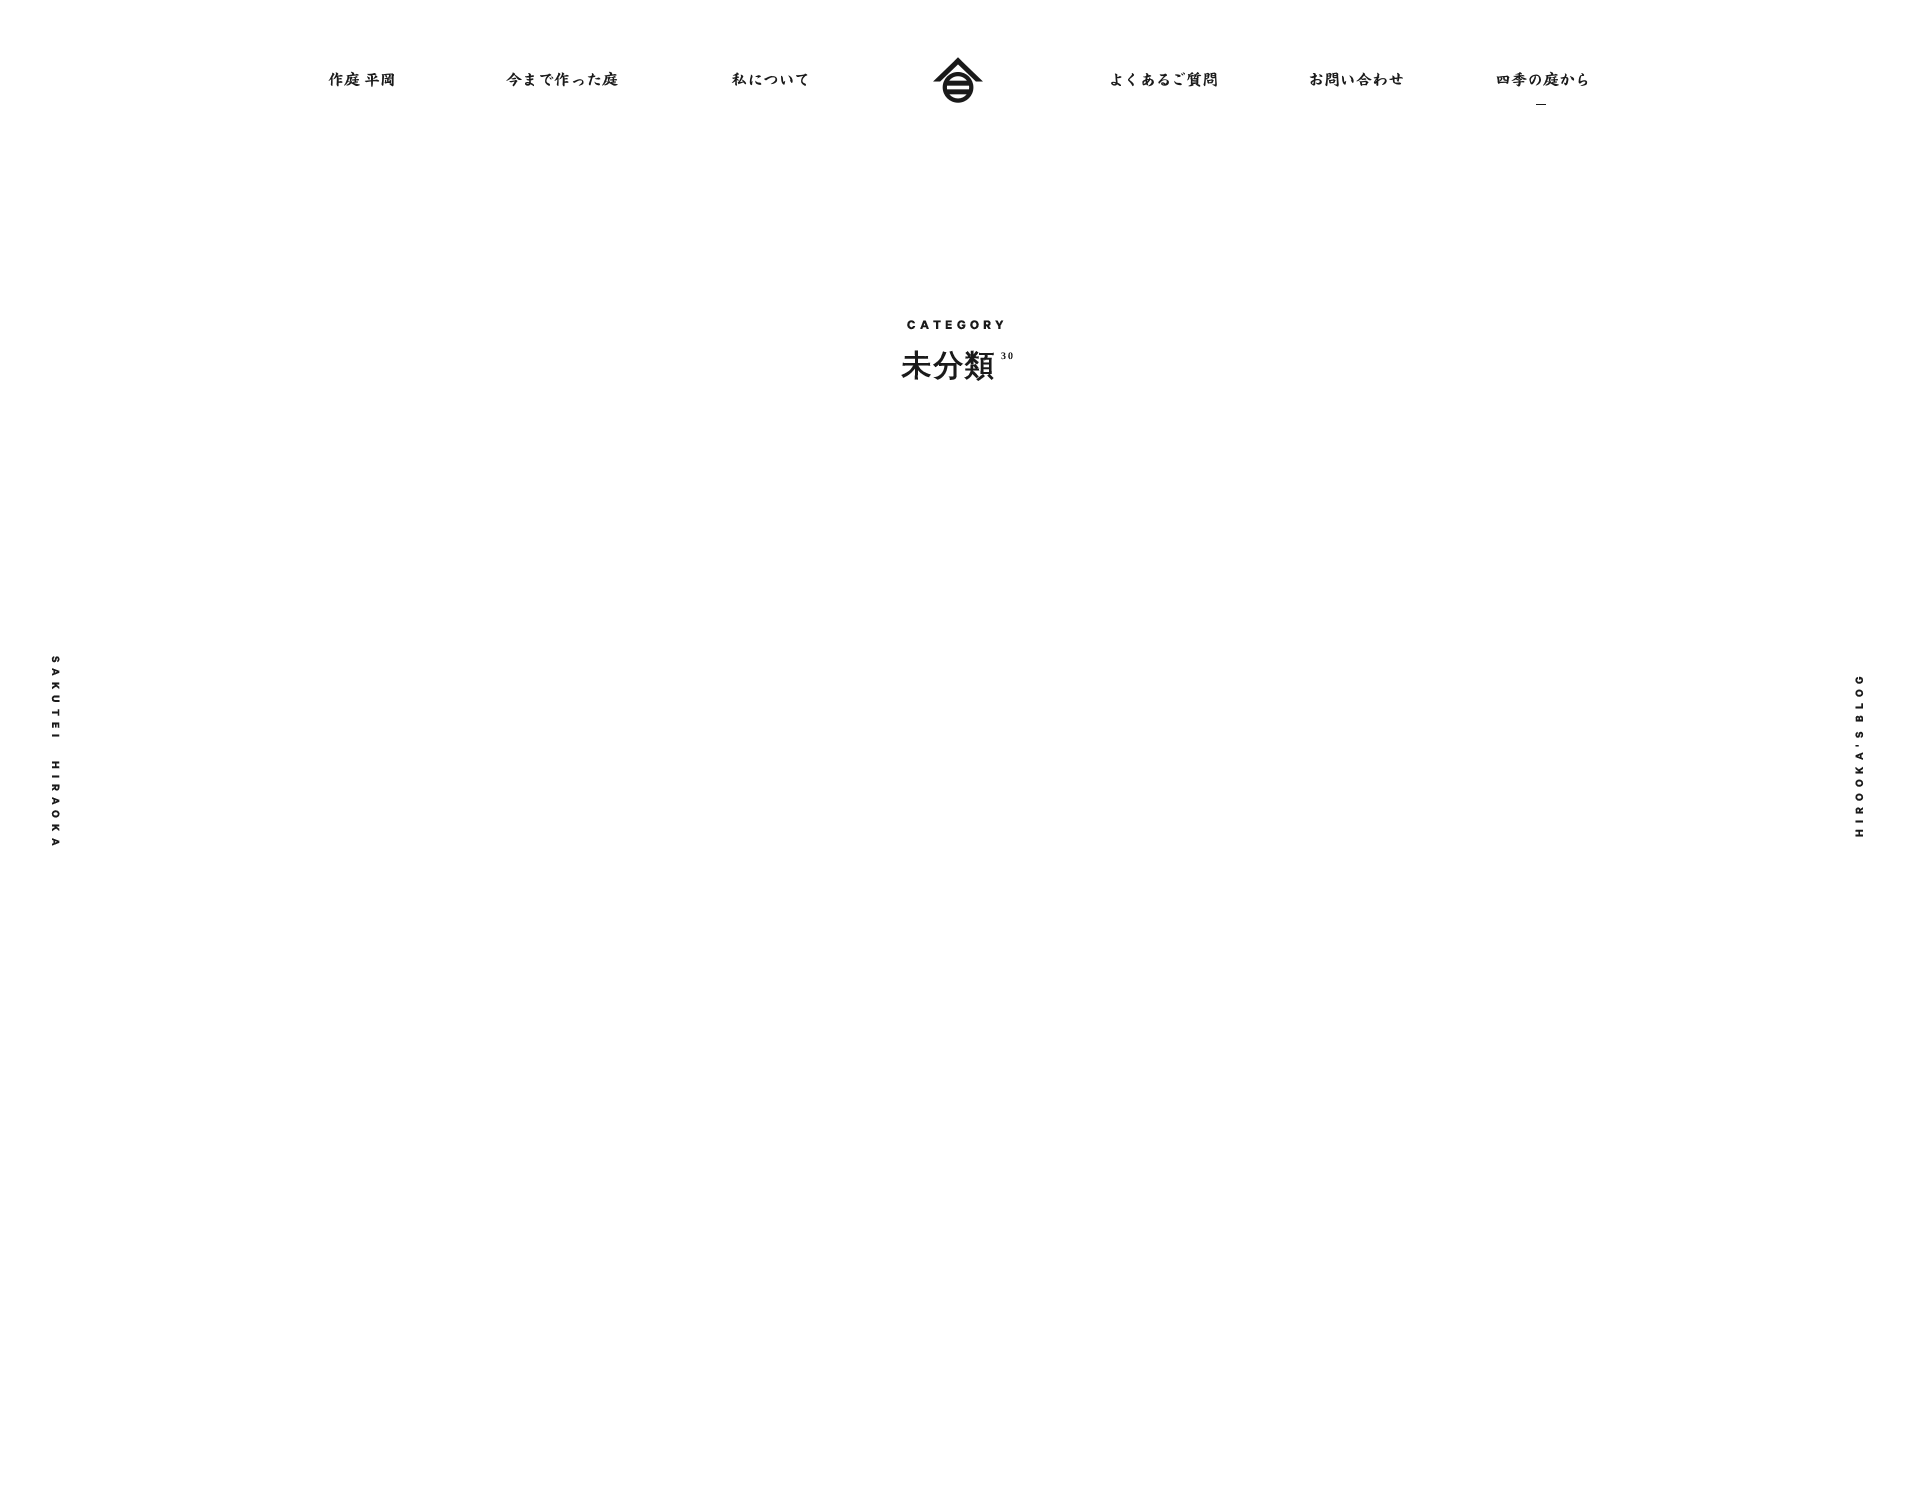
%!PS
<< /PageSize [1915 1507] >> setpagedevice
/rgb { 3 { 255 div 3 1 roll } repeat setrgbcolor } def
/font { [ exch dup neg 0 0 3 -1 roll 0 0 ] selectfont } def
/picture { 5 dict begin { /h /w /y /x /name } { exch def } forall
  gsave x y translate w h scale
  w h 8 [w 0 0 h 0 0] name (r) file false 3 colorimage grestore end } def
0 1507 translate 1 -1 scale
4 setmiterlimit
255 255 255 rgb
0 0 1915 1507 rectfill
(img_01.rgb) 933 57 50 46 picture
(img_02.rgb) 328 71 66 16 picture
(img_03.rgb) 506 71 112 16 picture
(img_04.rgb) 731 72 77 14 picture
(img_05.rgb) 1111 72 106 15 picture
(img_06.rgb) 1309 72 94 15 picture
(img_07.rgb) 1496 71 92 16 picture
26 26 26 rgb
1536 104 10 1 rectfill
/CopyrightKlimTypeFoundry-Bold 14 font
907 329 moveto 4.25 0 (CATEGORY) ashow
/WenQuanYiZenHei-Bold 30 font
901 376 moveto 1.5 0 (未分類) ashow
/LiberationSerif-Bold 10 font
1001 359 moveto 1.5 0 (30) ashow
/CopyrightKlimTypeFoundry-Bold 12 font
gsave 52 656 translate 90 rotate 0 0 moveto 6 0 (S) ashow grestore
gsave 52 668 translate 90 rotate 0 0 moveto 6 0 (A) ashow grestore
gsave 52 682 translate 90 rotate 0 0 moveto 6 0 (K) ashow grestore
gsave 52 695 translate 90 rotate 0 0 moveto 6 0 (U) ashow grestore
gsave 52 709 translate 90 rotate 0 0 moveto 6 0 (T) ashow grestore
gsave 52 722 translate 90 rotate 0 0 moveto 6 0 (E) ashow grestore
gsave 52 734 translate 90 rotate 0 0 moveto 6 0 (I) ashow grestore
gsave 52 761 translate 90 rotate 0 0 moveto 6 0 (H) ashow grestore
gsave 52 775 translate 90 rotate 0 0 moveto 6 0 (I) ashow grestore
gsave 52 784 translate 90 rotate 0 0 moveto 6 0 (R) ashow grestore
gsave 52 797 translate 90 rotate 0 0 moveto 6 0 (A) ashow grestore
gsave 52 810 translate 90 rotate 0 0 moveto 6 0 (O) ashow grestore
gsave 52 824 translate 90 rotate 0 0 moveto 6 0 (K) ashow grestore
gsave 52 838 translate 90 rotate 0 0 moveto 6 0 (A) ashow grestore
gsave 1863 684 translate -90 rotate 0 0 moveto 6 0 (G) ashow grestore
gsave 1863 697 translate -90 rotate 0 0 moveto 6 0 (O) ashow grestore
gsave 1863 709 translate -90 rotate 0 0 moveto 6 0 (L) ashow grestore
gsave 1863 722 translate -90 rotate 0 0 moveto 6 0 (B) ashow grestore
gsave 1863 738 translate -90 rotate 0 0 moveto 6 0 (S) ashow grestore
gsave 1863 747 translate -90 rotate 0 0 moveto 6 0 (') ashow grestore
gsave 1863 760 translate -90 rotate 0 0 moveto 6 0 (A) ashow grestore
gsave 1863 774 translate -90 rotate 0 0 moveto 6 0 (K) ashow grestore
gsave 1863 787 translate -90 rotate 0 0 moveto 6 0 (O) ashow grestore
gsave 1863 801 translate -90 rotate 0 0 moveto 6 0 (O) ashow grestore
gsave 1863 814 translate -90 rotate 0 0 moveto 6 0 (R) ashow grestore
gsave 1863 823 translate -90 rotate 0 0 moveto 6 0 (I) ashow grestore
gsave 1863 837 translate -90 rotate 0 0 moveto 6 0 (H) ashow grestore
showpage
